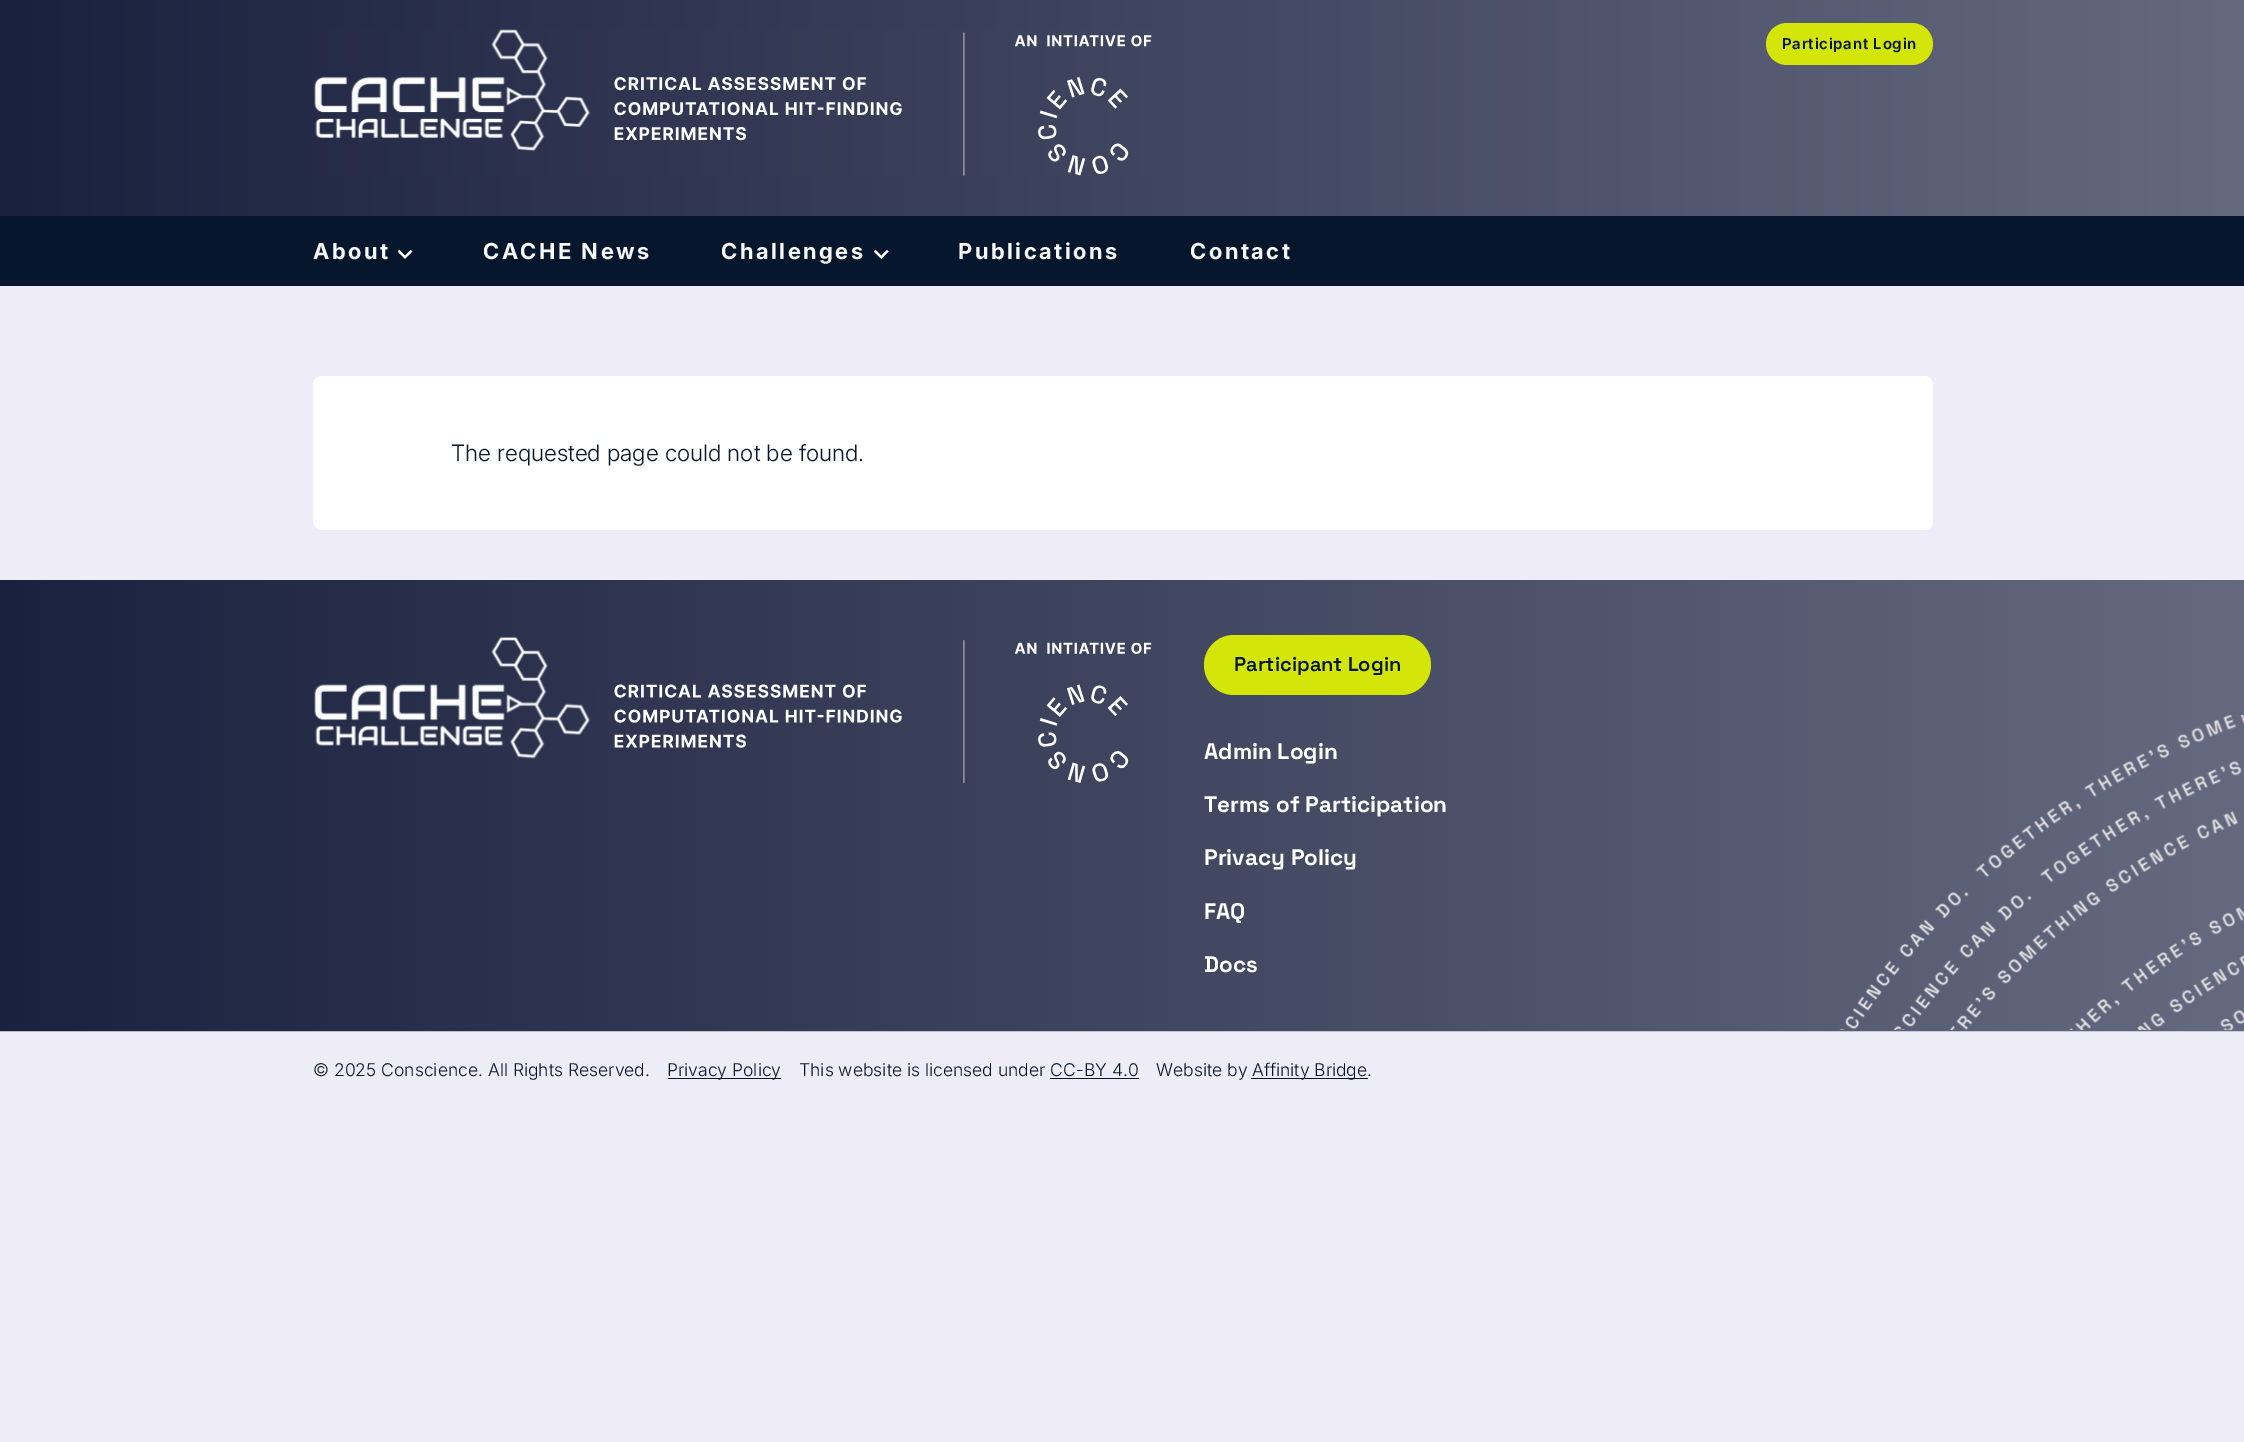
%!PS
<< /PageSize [2244 1442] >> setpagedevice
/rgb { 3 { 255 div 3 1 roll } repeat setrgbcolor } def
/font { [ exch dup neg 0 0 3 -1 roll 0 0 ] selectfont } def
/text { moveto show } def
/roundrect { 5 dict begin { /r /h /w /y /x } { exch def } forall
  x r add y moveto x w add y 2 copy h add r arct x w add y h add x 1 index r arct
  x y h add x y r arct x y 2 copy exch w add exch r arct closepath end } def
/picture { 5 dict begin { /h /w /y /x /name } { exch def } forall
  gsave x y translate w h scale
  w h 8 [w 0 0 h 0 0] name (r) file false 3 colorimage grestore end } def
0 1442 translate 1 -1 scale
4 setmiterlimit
238 236 246 rgb
0 0 2244 1442 rectfill
gsave 0 0 moveto 2244 0 rlineto 0 216 rlineto -2244 0 rlineto closepath clip newpath
<< /ShadingType 2 /ColorSpace /DeviceRGB /Coords [0 108 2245 108] /Extend [true true] /Function << /FunctionType 2 /Domain [0 1] /C0 [0.102 0.129 0.243] /C1 [0.396 0.412 0.498] /N 1 >> >> shfill grestore
(img_01.rgb) 314 29 838 147 picture
212 229 9 rgb
1766 23 167 42 21 roundrect fill
6 22 44 rgb
0 216 2244 70 rectfill
(img_02.rgb) 398 249 15 10 picture
(img_03.rgb) 874 249 15 10 picture
255 255 255 rgb
313 376 1620 154 9 roundrect fill
(img_04.rgb) 0 580 2244 452 picture
(img_05.rgb) 314 636 838 147 picture
212 229 9 rgb
1204 635 227 60 30 roundrect fill
6 22 44 rgb
668 1078 113 1 rectfill
1050 1078 89 1 rectfill
1251 1078 117 1 rectfill
/Inter-SemiBold 15 font
1782 49 moveto 0.75 0 (Participant Login) ashow
/Inter-Bold 22 font
248 249 250 rgb
313 259 moveto 2.5 0 (About) ashow
483 259 moveto 2.5 0 (CACHE News) ashow
721 259 moveto 2.5 0 (Challenges) ashow
958 259 moveto 2.5 0 (Publications) ashow
1190 259 moveto 2.5 0 (Contact) ashow
/Inter-Light 22.5 font
6 22 44 rgb
(The requested page could not be found.) 451 461 text
/SpaceGrotesk-SemiBold 20 font
(Participant Login) 1234 671 text
/SpaceGrotesk-Bold 22.5 font
255 255 255 rgb
(Admin Login) 1204 759 text
(Terms of Participation) 1204 812 text
(Privacy Policy) 1204 865 text
(FAQ) 1204 919 text
(Docs) 1204 972 text
/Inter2-Light 17.5 font
6 22 44 rgb
(© 2025 Conscience. All Rights Reserved.) 313 1076 text
(Privacy Policy) 667 1076 text
(This website is licensed under CC-BY 4.0) 799 1076 text
(Website by) 1156 1076 text
(Affinity Bridge.) 1252 1076 text
showpage
